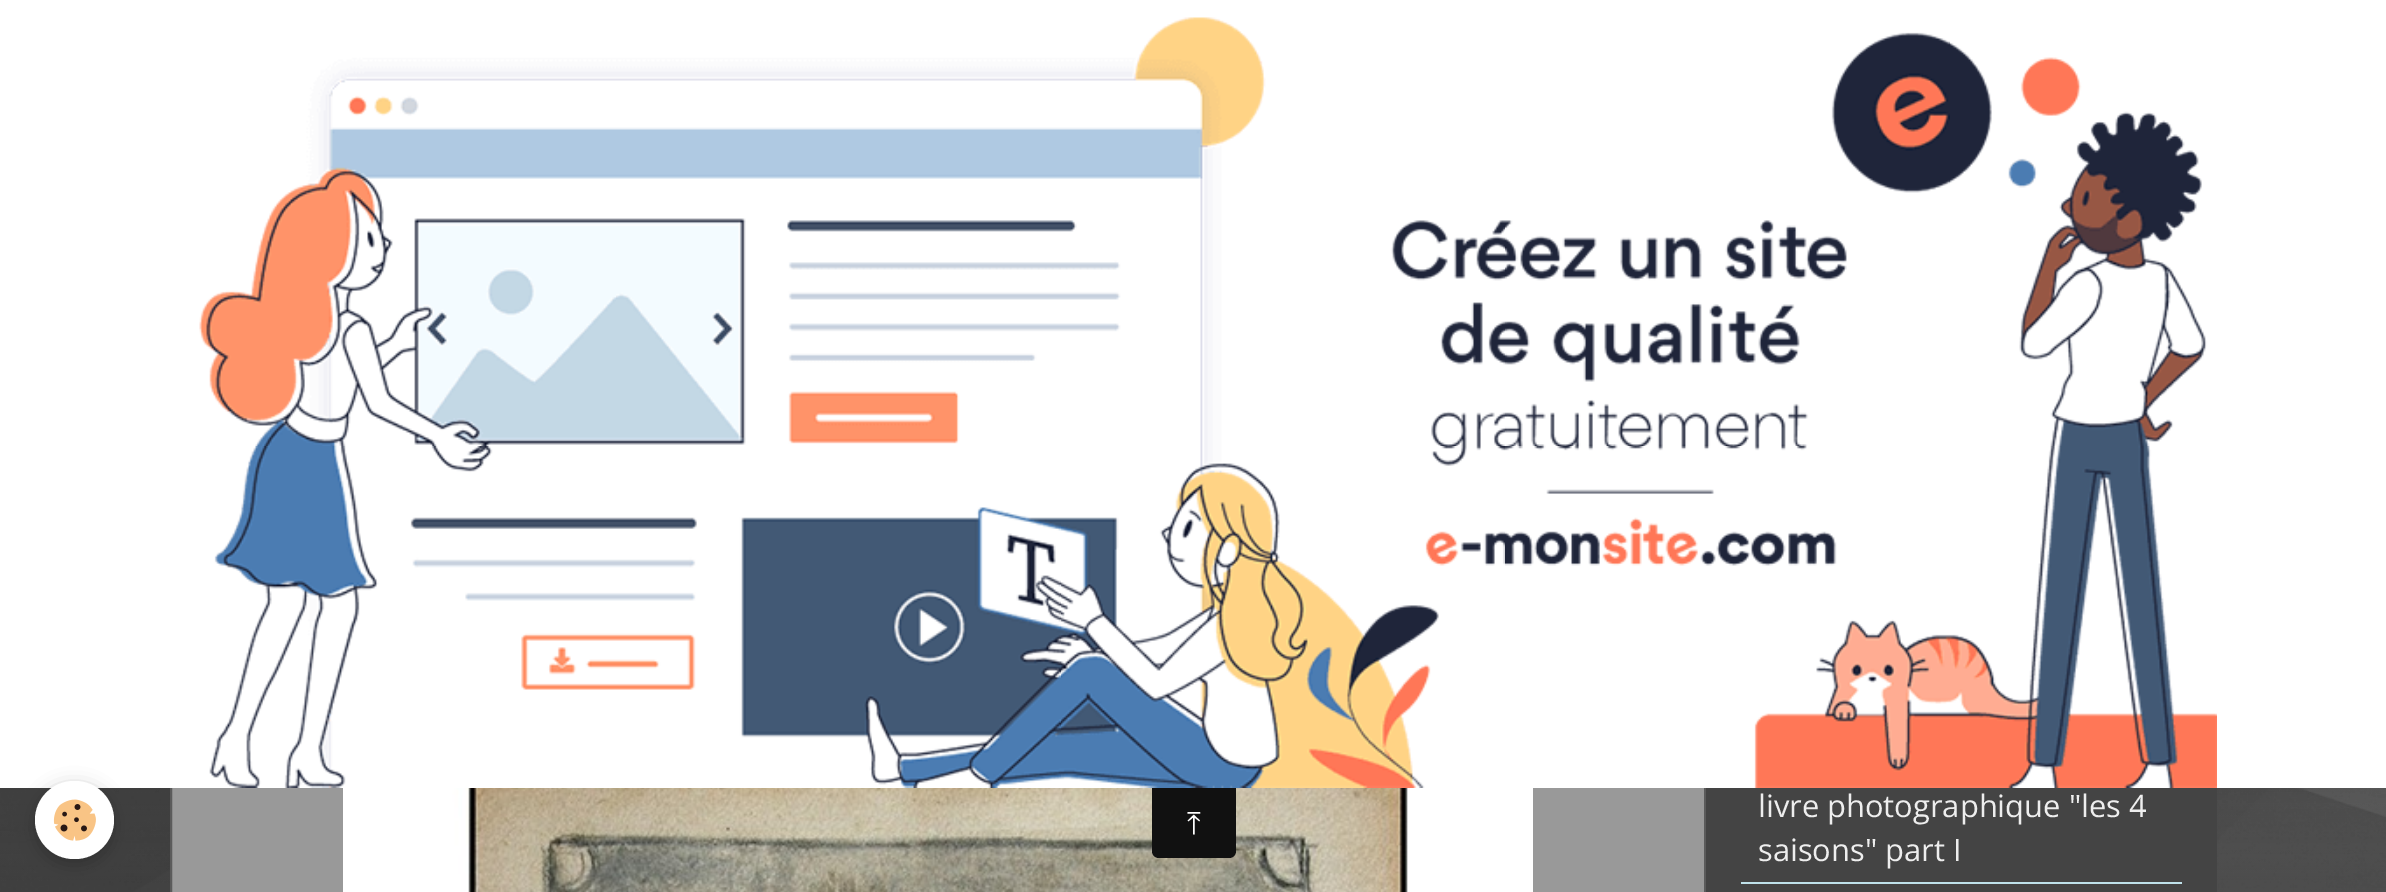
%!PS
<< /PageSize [2386 892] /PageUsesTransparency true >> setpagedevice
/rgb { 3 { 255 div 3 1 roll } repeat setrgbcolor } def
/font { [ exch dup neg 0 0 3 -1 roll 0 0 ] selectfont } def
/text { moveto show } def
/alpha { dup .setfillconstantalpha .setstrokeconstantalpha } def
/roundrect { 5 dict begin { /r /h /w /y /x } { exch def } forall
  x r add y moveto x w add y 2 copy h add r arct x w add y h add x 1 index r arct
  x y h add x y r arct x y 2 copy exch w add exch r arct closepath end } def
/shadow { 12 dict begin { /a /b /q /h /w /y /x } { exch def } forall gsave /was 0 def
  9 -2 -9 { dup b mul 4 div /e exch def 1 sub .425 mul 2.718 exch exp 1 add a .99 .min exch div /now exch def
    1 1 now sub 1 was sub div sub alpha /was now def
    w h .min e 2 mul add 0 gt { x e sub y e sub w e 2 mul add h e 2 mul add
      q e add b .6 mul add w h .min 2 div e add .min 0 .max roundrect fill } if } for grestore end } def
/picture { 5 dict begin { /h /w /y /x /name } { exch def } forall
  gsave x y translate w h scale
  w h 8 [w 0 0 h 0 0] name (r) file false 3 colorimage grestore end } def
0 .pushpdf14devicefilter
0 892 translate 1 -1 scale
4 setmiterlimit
68 68 68 rgb
0 0 2386 892 rectfill
(img_01.rgb) 0 788 2386 104 picture
153 153 153 rgb
172 788 1532 104 rectfill
91 91 91 rgb
2 setlinewidth
171 316 1534 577 rectstroke
255 255 255 rgb
0 0 2386 788 rectfill
0 0 0 rgb
35 786 79 79 39.5 9 0.24 shadow
255 255 255 rgb
35 781 79 78 39 roundrect fill
(img_02.rgb) 53 799 43 42 picture
(img_03.rgb) 199 17 2018 771 picture
(img_04.rgb) 343 788 1190 104 picture
17 17 17 rgb
1152 788 moveto 84 0 rlineto 0 63 rlineto 0 4 -3 7 -7 7 rcurveto -70 0 rlineto -4 0 -7 -3 -7 -7 rcurveto closepath fill
68 68 68 rgb
1706 788 511 104 rectfill
192 226 235 rgb
1741 882 441 2 rectfill
/FreeSerif-Regular 30.9 font
255 255 255 rgb
(⤒) 1187 834 text
/OpenSans-Regular 30.9 font
238 238 238 rgb
(livre photographique "les 4) 1758 817 text
(saisons" part I) 1758 861 text
.poppdf14devicefilter showpage
